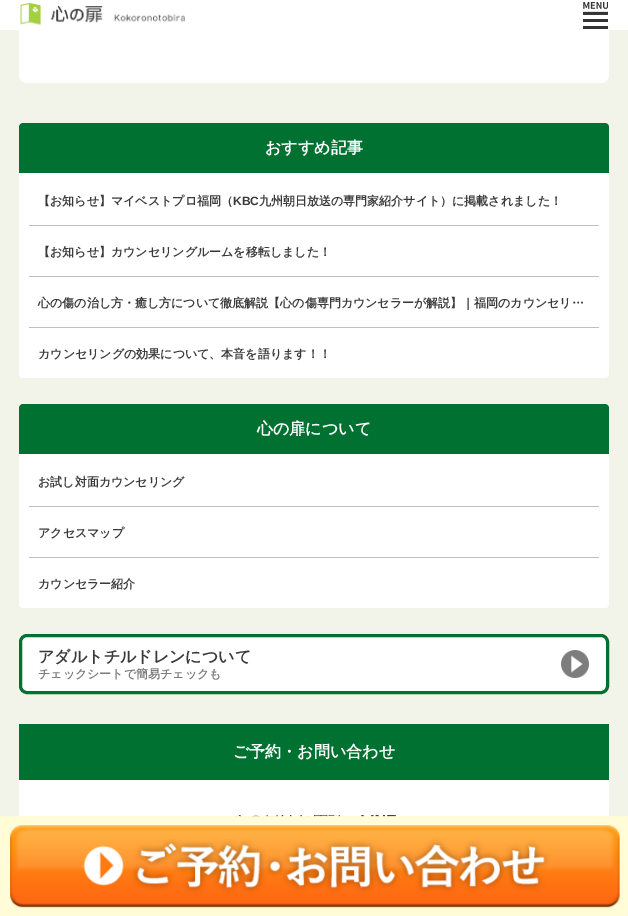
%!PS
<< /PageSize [628 916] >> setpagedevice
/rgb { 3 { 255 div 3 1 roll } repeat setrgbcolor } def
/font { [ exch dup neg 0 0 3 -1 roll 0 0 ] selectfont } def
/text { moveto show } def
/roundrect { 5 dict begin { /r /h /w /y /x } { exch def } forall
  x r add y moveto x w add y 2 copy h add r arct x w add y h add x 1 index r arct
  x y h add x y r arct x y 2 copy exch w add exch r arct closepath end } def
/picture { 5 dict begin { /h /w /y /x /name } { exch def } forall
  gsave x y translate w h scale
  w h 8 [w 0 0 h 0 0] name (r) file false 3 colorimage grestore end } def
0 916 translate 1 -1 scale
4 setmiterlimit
243 244 233 rgb
0 0 628 916 rectfill
255 255 255 rgb
19 -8 590 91 8 roundrect fill
0 0 628 30 rectfill
(img_01.rgb) 20 3 165 22 picture
(img_02.rgb) 583 2 25 27 picture
19 123 590 255 4 roundrect fill
0 113 48 rgb
23 123 moveto 582 0 rlineto 2 0 4 2 4 4 rcurveto 0 46 rlineto -590 0 rlineto 0 -46 rlineto 0 -2 2 -4 4 -4 rcurveto closepath fill
191 191 191 rgb
29 225 570 1 rectfill
29 276 570 1 rectfill
29 327 570 1 rectfill
255 255 255 rgb
19 404 590 204 4 roundrect fill
0 113 48 rgb
23 404 moveto 582 0 rlineto 2 0 4 2 4 4 rcurveto 0 46 rlineto -590 0 rlineto 0 -46 rlineto 0 -2 2 -4 4 -4 rcurveto closepath fill
191 191 191 rgb
29 506 570 1 rectfill
29 557 570 1 rectfill
255 255 255 rgb
20.5 635.5 587 57 6.5 roundrect gsave fill grestore
0 113 48 rgb
3 setlinewidth
stroke
(img_03.rgb) 561 650 28 28 picture
255 255 255 rgb
19 780 590 136 rectfill
0 113 48 rgb
19 724 590 56 rectfill
(img_04.rgb) 0 815 628 101 picture
/WenQuanYiZenHei-Bold 16 font
255 255 255 rgb
(おすすめ記事) 265 153 text
/WenQuanYiZenHei-Bold 12 font
58 58 58 rgb
(【お知らせ】マイベストプロ福岡（) 38 205 text
/LiberationSans-Bold 12 font
(KBC) 233 205 text
/WenQuanYiZenHei-Bold 12 font
(九州朝日放送の専門家紹介サイト）に掲載されました！) 259 205 text
(【お知らせ】カウンセリングルームを移転しました！) 38 256 text
(心の傷の治し方・癒し方について徹底解説【心の傷専門カウンセラーが解説】｜福岡のカウンセリ…) 38 307 text
(カウンセリングの効果について、本音を語ります！！) 38 358 text
/WenQuanYiZenHei-Bold 16 font
255 255 255 rgb
(心の扉について) 257 434 text
/WenQuanYiZenHei-Bold 12 font
58 58 58 rgb
(お試し対面カウンセリング) 38 486 text
(アクセスマップ) 38 537 text
(カウンセラー紹介) 38 588 text
/WenQuanYiZenHei-Bold 16 font
(アダルトチルドレンについて) 38 662 text
/WenQuanYiZenHei-Bold 12 font
125 125 125 rgb
(チェックシートで簡易チェックも) 38 678 text
/WenQuanYiZenHei-Bold 16 font
255 255 255 rgb
(ご予約・お問い合わせ) 233 757 text
showpage
